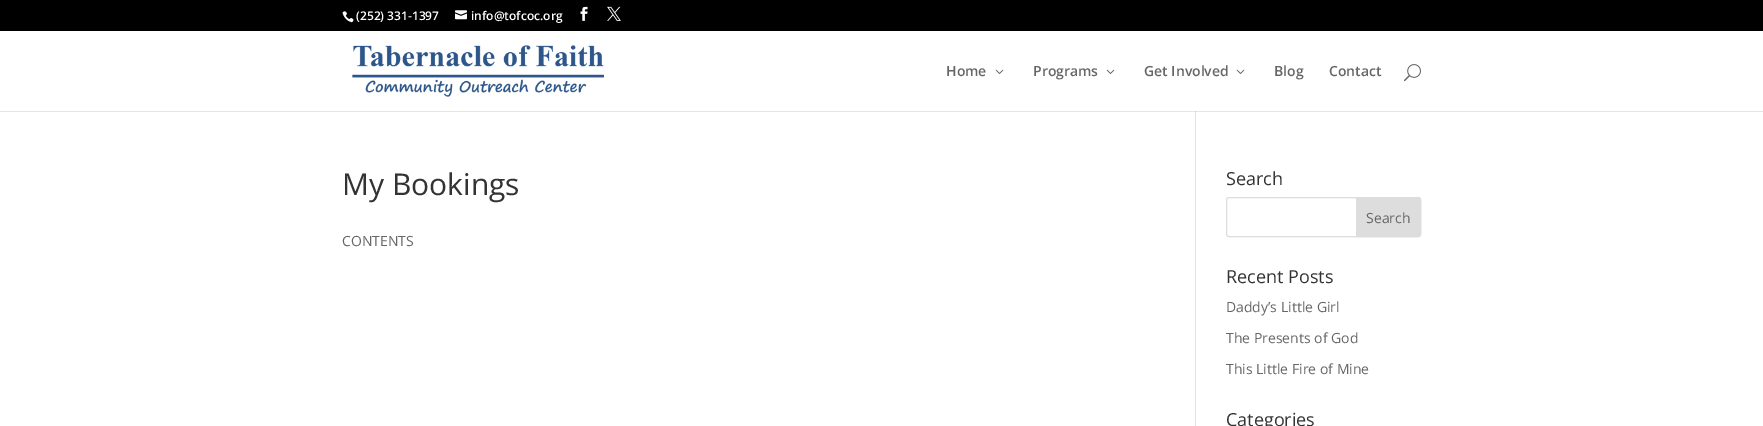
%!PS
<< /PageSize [1763 426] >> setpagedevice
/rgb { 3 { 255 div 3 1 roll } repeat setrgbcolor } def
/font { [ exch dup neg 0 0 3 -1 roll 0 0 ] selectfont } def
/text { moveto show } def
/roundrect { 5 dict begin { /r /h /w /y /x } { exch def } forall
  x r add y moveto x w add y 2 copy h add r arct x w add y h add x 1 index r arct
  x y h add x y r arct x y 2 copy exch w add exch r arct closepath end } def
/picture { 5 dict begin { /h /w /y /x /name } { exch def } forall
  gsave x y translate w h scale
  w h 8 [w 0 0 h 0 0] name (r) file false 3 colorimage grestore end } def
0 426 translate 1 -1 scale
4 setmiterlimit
255 255 255 rgb
0 0 1763 426 rectfill
230 230 230 rgb
0 111 1763 1 rectfill
0 0 0 rgb
0 0 1763 31 rectfill
(img_01.rgb) 342 11 12 12 picture
(img_02.rgb) 455 10 12 10 picture
(img_03.rgb) 580 6 8 15 picture
(img_04.rgb) 607 6 14 15 picture
(img_05.rgb) 352 45 252 52 picture
(img_06.rgb) 995 69 9 5 picture
(img_06.rgb) 1106 69 9 5 picture
(img_06.rgb) 1236 69 9 5 picture
(img_07.rgb) 1404 64 17 18 picture
226 226 226 rgb
1195 111 1 315 rectfill
203 203 203 rgb
1195 111 1 1 rectfill
221 221 221 rgb
1226.5 197.5 194 39 2.5 roundrect stroke
1356.5 197.5 moveto 61.5 0 rlineto 1.5 0 2.5 1 2.5 2.5 rcurveto 0 34 rlineto 0 1.5 -1 2.5 -2.5 2.5 rcurveto -61.5 0 rlineto closepath gsave fill grestore
stroke
/OpenSans-SemiBold 12 font
255 255 255 rgb
(\(252\) 331-1397) 356 20 text
(info@tofcoc.org) 471 20 text
/OpenSans-SemiBold 14 font
102 102 102 rgb
(Home) 946 76 text
(Programs) 1033 76 text
(Get Involved) 1144 76 text
(Blog) 1274 76 text
(Contact) 1329 76 text
/OpenSans-Regular 30 font
51 51 51 rgb
(My Bookings) 342 195 text
/OpenSans-Regular 14 font
102 102 102 rgb
(CONTENTS) 342 246 text
/OpenSans-Regular 18 font
51 51 51 rgb
(Search) 1226 185 text
/OpenSans-Regular 14 font
102 102 102 rgb
(Search) 1366 223 text
/OpenSans-Regular 18 font
51 51 51 rgb
(Recent Posts) 1226 283 text
/OpenSans-Regular 14 font
102 102 102 rgb
(Daddy’s Little Girl) 1226 312 text
(The Presents of God) 1226 343 text
(This Little Fire of Mine) 1226 374 text
/OpenSans-Regular 18 font
51 51 51 rgb
(Categories) 1226 426 text
showpage
